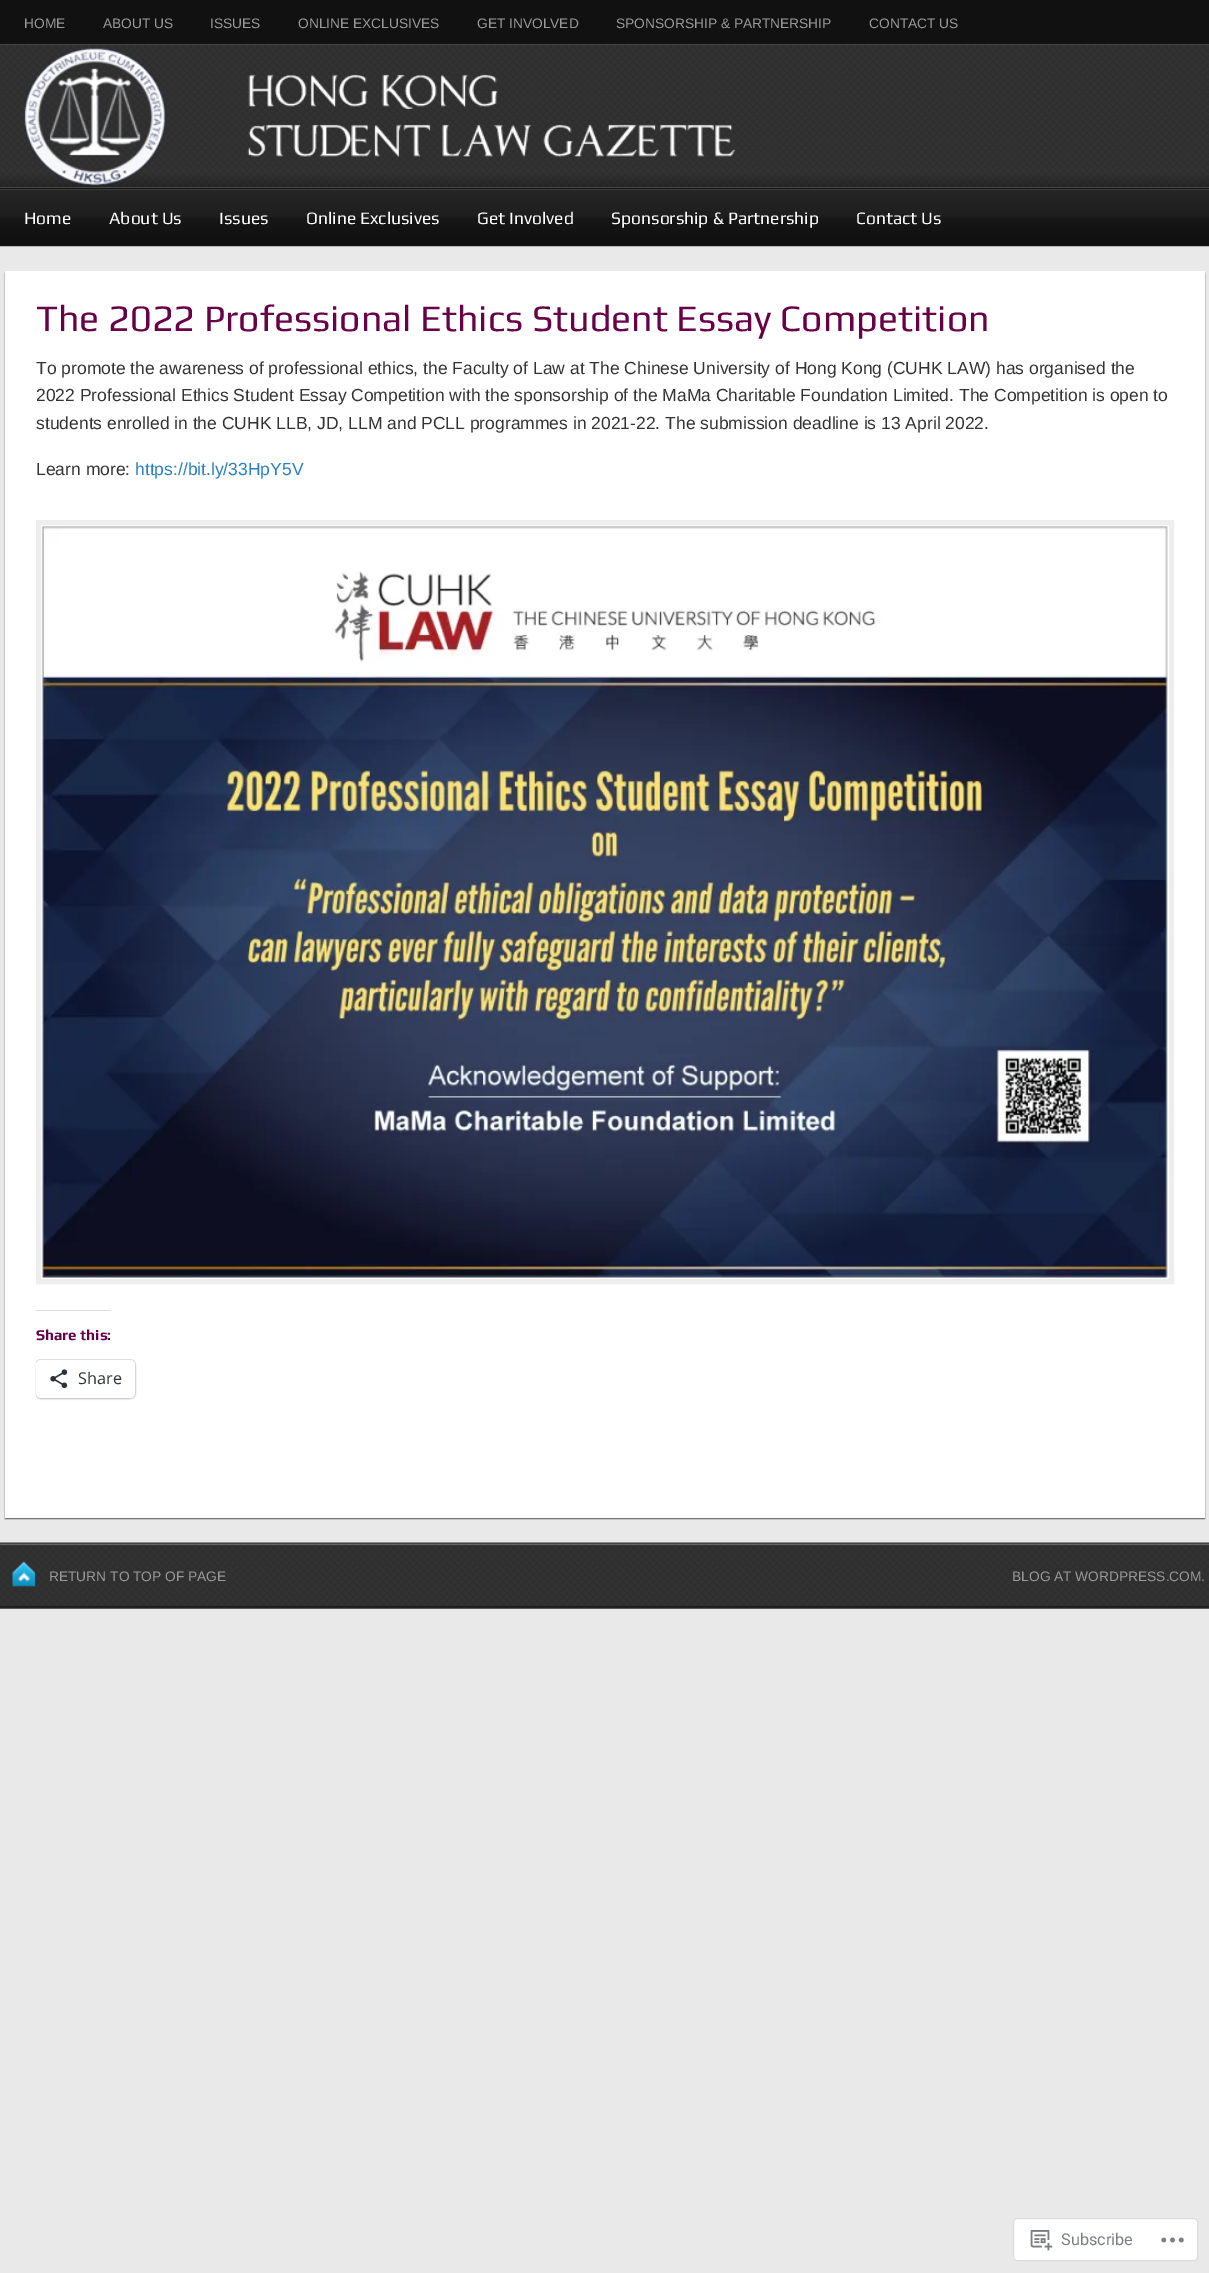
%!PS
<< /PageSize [1209 2273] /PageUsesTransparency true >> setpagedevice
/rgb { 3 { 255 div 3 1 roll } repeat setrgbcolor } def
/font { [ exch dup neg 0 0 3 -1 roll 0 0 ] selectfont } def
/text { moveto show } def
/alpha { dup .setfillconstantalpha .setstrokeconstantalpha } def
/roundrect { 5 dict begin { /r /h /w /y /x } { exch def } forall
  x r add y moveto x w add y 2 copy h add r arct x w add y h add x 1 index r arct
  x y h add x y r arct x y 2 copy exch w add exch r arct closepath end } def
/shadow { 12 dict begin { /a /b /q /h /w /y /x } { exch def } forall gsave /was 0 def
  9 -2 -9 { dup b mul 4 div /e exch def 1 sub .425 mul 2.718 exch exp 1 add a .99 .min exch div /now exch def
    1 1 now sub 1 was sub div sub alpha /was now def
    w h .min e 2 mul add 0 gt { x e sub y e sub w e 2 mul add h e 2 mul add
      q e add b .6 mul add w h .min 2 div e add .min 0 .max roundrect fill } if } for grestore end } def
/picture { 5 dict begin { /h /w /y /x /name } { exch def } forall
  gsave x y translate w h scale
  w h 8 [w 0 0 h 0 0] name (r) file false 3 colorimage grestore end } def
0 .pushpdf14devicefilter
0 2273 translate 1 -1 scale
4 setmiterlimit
233 233 233 rgb
0 0 1209 2273 rectfill
17 17 17 rgb
0 0 1209 44 rectfill
(img_01.rgb) 0 44 1209 144 picture
(img_02.rgb) 23 48 713 138 picture
(img_03.rgb) 0 187 1209 60 picture
0 188 1209 1 rectfill
0 245 1209 1 rectfill
102 102 102 rgb
5 273 1200 1246 0 0.5 1 shadow
255 255 255 rgb
5 271 1200 1247 rectfill
238 238 238 rgb
5 setlinewidth
38.5 522.5 1133 759 rectstroke
(img_04.rgb) 42 526 1126 752 picture
220 220 222 rgb
36 1310 75 1 rectfill
gsave
36 354 1138 1139 rectclip
224 224 224 rgb
1 setlinewidth
35.5 1359.5 100 39 5.5 roundrect stroke
grestore
0 0 0 rgb
36 1361 99 38 5 1 0.12 shadow
255 255 255 rgb
36 1360 99 38 5 roundrect fill
(img_05.rgb) 50 1369 18 20 picture
(img_06.rgb) 0 1542 1209 67 picture
(img_07.rgb) 12 1561 24 26 picture
1013.5 2218.5 184 42 3.5 roundrect gsave fill grestore
220 220 222 rgb
1 setlinewidth
stroke
(img_08.rgb) 1030 2230 23 21 picture
(img_09.rgb) 1161 2237 23 6 picture
/LiberationSans-Regular 13.75 font
153 153 153 rgb
(HOME) 24 28 text
(ABOUT US) 103 28 text
(ISSUES) 210 28 text
(ONLINE EXCLUSIVES) 298 28 text
(GET INVOLVED) 477 28 text
(SPONSORSHIP & PARTNERSHIP) 616 28 text
(CONTACT US) 869 28 text
/Play-Regular 17.5 font
255 255 255 rgb
(Home) 24 224 text
(About Us) 109 224 text
(Issues) 219 224 text
(Online Exclusives) 306 224 text
(Get Involved) 477 224 text
(Sponsorship & Partnership) 611 224 text
(Contact Us) 856 224 text
/Play-Regular 37.5 font
104 1 72 rgb
(The 2022 Professional Ethics Student Essay Competition) 36 331 text
/LiberationSans-Regular 17.5 font
51 51 51 rgb
(To promote the awareness of professional ethics, the Faculty of Law at The Chinese University of Hong Kong \(CUHK LAW\) has organised the) 36 374 text
(2022 Professional Ethics Student Essay Competition with the sponsorship of the MaMa Charitable Foundation Limited. The Competition is open to) 36 401 text
(students enrolled in the CUHK LLB, JD, LLM and PCLL programmes in 2021-22. The submission deadline is 13 April 2022.) 36 429 text
(Learn more:) 36 475 text
39 128 199 rgb
(https://bit.ly/33HpY5V) 135 475 text
/Play-Bold 15 font
104 1 72 rgb
(Share this:) 36 1340 text
/OpenSans-Regular 16.25 font
44 51 56 rgb
(Share) 78 1384 text
/LiberationSans-Regular 13.75 font
153 153 153 rgb
(RETURN TO TOP OF PAGE) 49 1581 text
(BLOG AT WORDPRESS.COM.) 1012 1581 text
/Roboto-Regular 16.25 font
122 126 132 rgb
(Subscribe) 1061 2245 text
.poppdf14devicefilter showpage
